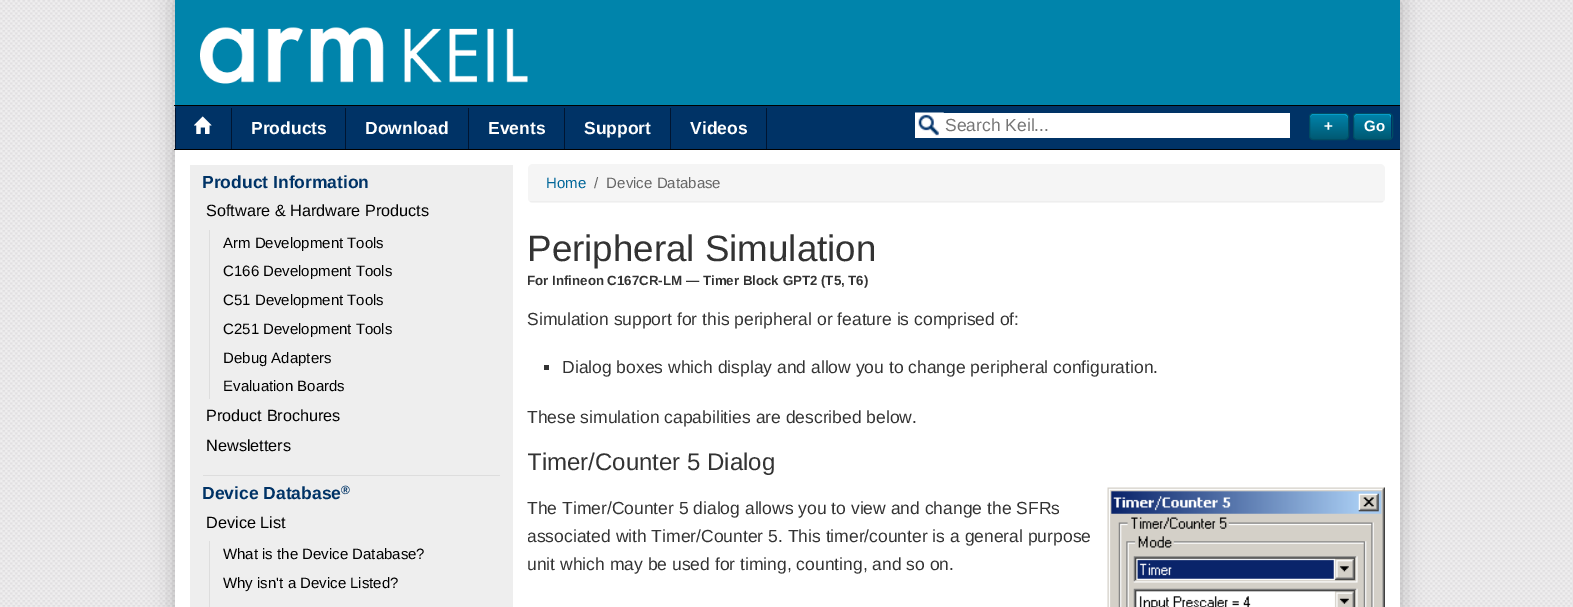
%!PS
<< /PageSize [1573 607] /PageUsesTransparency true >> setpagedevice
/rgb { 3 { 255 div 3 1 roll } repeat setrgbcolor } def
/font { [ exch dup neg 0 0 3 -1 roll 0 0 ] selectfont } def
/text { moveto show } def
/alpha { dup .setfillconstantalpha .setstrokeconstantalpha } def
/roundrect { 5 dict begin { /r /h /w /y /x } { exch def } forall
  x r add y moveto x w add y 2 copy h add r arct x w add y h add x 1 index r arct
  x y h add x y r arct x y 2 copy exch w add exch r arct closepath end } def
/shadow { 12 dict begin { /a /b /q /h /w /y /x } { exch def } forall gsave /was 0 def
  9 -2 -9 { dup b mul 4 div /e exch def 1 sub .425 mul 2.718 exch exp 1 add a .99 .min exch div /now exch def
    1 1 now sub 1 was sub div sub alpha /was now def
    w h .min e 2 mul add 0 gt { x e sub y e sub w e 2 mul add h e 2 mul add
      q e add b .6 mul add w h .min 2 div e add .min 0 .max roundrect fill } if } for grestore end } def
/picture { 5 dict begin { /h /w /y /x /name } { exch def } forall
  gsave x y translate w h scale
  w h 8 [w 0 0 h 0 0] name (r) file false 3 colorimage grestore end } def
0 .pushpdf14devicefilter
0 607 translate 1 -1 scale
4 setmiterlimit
231 230 231 rgb
0 0 1573 607 rectfill
(img_01.rgb) 0 0 1572 607 picture
50 50 50 rgb
175 0 1225 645 0 12.5 0.3 shadow
255 255 255 rgb
175 150 1225 457 rectfill
0 132 171 rgb
175 0 1225 105 rectfill
(img_02.rgb) 200 27 328 57 picture
0 51 102 rgb
175 106 1225 43 rectfill
0 21 49 rgb
231 108 1 41 rectfill
175 108 1 41 rectfill
345 108 1 41 rectfill
468 108 1 41 rectfill
564 108 1 41 rectfill
670 108 1 41 rectfill
766 108 1 41 rectfill
0 0 0 rgb
174 105 1226 1 rectfill
255 255 255 rgb
915 113 375 25 rectfill
(img_03.rgb) 915 112 29 24 picture
gsave 1310 114 38 25 2.5 roundrect clip newpath
<< /ShadingType 2 /ColorSpace /DeviceRGB /Coords [1329 114 1329 139] /Extend [true true] /Function << /FunctionType 2 /Domain [0 1] /C0 [0 0.518 0.671] /C1 [0 0.349 0.451] /N 1 >> >> shfill grestore
10 186 238 rgb
1312 115 moveto 33 0 rlineto 1 0 3 1 3 3 rcurveto 0 -5.5 -3 -4 -8 -4 rcurveto -22 0 rlineto -5 0 -8 -1.5 -8 4 rcurveto 0 -2 1 -3 2 -3 rcurveto closepath fill
0 77 100 rgb
1309.5 113.5 39 26 3.5 roundrect stroke
gsave 1354 114 37 25 2.5 roundrect clip newpath
<< /ShadingType 2 /ColorSpace /DeviceRGB /Coords [1373 114 1373 139] /Extend [true true] /Function << /FunctionType 2 /Domain [0 1] /C0 [0 0.518 0.671] /C1 [0 0.349 0.451] /N 1 >> >> shfill grestore
10 186 238 rgb
1356 115 moveto 33 0 rlineto 1 0 2 1 2 3 rcurveto 0 -5.5 -3 -4 -8 -4 rcurveto -21 0 rlineto -5 0 -8 -1.5 -8 4 rcurveto 0 -2 1 -3 2 -3 rcurveto closepath fill
0 77 100 rgb
1353.5 113.5 39 26 3.5 roundrect stroke
238 238 238 rgb
190 165 323 442 rectfill
221 221 221 rgb
209 230 1 169 rectfill
203 475 297 1 rectfill
209 541 1 66 rectfill
0 0 0 rgb
174 149 1226 1 rectfill
245 245 245 rgb
528 164 857 39 5 roundrect fill
238 238 238 rgb
530 201 853 1 rectfill
51 51 51 rgb
544 365 5 5 rectfill
(img_04.rgb) 1107 487 278 120 picture
/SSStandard-Regular 17.5 font
255 255 255 rgb
(⌂) 194 134 text
/LiberationSans-Bold 17.5 font
(Products) 251 134 text
(Download) 365 134 text
(Events) 488 134 text
(Support) 584 134 text
(Videos) 690 134 text
/LiberationSans-Regular 17.5 font
117 117 117 rgb
(Search Keil...) 945 131 text
/LiberationSans-Bold 15 font
255 255 255 rgb
(+) 1324 131 text
(Go) 1364 131 text
/LiberationSans-Bold 17.5 font
0 51 102 rgb
(Product Information) 202 188 text
/LiberationSans-Regular 16.25 font
0 0 0 rgb
(Software & Hardware Products) 206 216 text
/LiberationSans-Regular 15 font
(Arm Development Tools) 223 248 text
(C166 Development Tools) 223 276 text
(C51 Development Tools) 223 305 text
(C251 Development Tools) 223 334 text
(Debug Adapters) 223 363 text
(Evaluation Boards) 223 391 text
/LiberationSans-Regular 16.25 font
(Product Brochures) 206 421 text
(Newsletters) 206 451 text
/LiberationSans-Bold 17.5 font
0 51 102 rgb
(Device Database) 202 499 text
/LiberationSans-Bold 12 font
(®) 341 494 text
/LiberationSans-Regular 16.25 font
0 0 0 rgb
(Device List) 206 528 text
/LiberationSans-Regular 15 font
(What is the Device Database?) 223 559 text
(Why isn't a Device Listed?) 223 588 text
0 102 153 rgb
(Home) 546 188 text
102 102 102 rgb
(/  Device Database) 594 188 text
/LiberationSans-Regular 36.75 font
51 51 51 rgb
(Peripheral Simulation) 527 261 text
gsave
528 158 857 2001 rectclip
/LiberationSans-Bold 13.3 font
(For Infineon C167CR-LM — Timer Block GPT2 \(T5, T6\)) 527 285 text
grestore
/LiberationSans-Regular 17.5 font
(Simulation support for this peripheral or feature is comprised of:) 527 325 text
(Dialog boxes which display and allow you to change peripheral configuration.) 562 373 text
(These simulation capabilities are described below.) 527 423 text
gsave
528 158 857 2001 rectclip
/LiberationSans-Regular 24 font
(Timer/Counter 5 Dialog) 527 470 text
grestore
(The Timer/Counter 5 dialog allows you to view and change the SFRs) 527 514 text
gsave
528 158 857 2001 rectclip
(associated with Timer/Counter 5. This timer/counter is a general purpose) 527 542 text
grestore
(unit which may be used for timing, counting, and so on.) 527 570 text
.poppdf14devicefilter showpage
